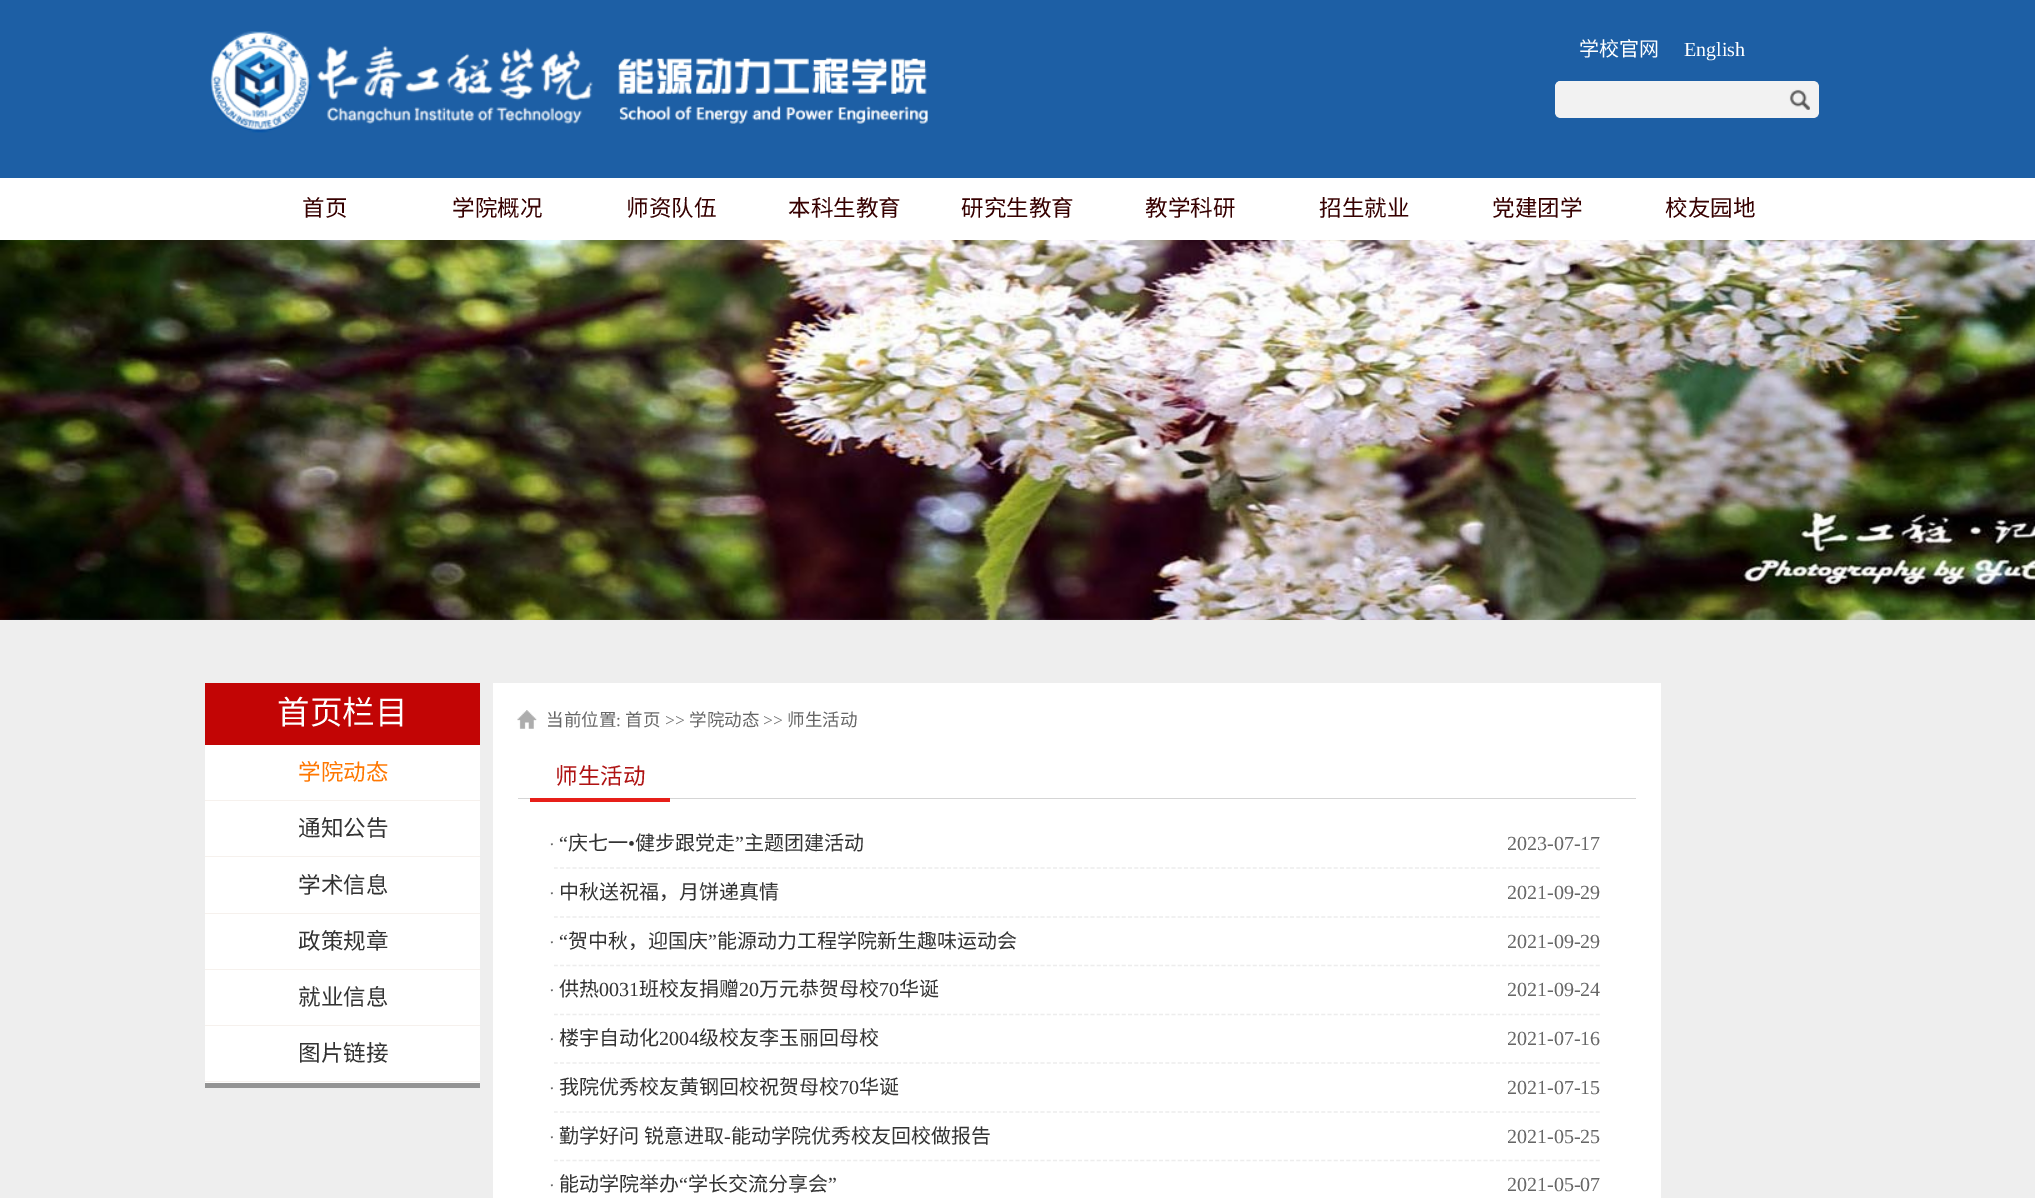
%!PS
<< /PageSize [2035 1198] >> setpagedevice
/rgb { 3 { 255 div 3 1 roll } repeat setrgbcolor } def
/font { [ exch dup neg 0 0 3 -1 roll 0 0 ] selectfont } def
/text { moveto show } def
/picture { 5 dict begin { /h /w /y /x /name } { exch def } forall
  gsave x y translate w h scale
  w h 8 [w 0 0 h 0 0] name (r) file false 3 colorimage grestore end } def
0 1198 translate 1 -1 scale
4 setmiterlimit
238 238 238 rgb
0 0 2035 1198 rectfill
29 95 165 rgb
0 0 2035 178 rectfill
(img_01.rgb) 210 31 718 102 picture
242 242 242 rgb
1561 81 moveto 220 0 rlineto 0 37 rlineto -220 0 rlineto -3.5 0 -6 -2.5 -6 -6 rcurveto 0 -25 rlineto 0 -3.5 2.5 -6 6 -6 rcurveto closepath fill
gsave
1555 81 275 40 rectclip
243 243 243 rgb
1561 81 moveto 220 0 rlineto 0 37 rlineto -221 -1 rlineto -7 -1 -5 -12 -5 -18 rcurveto 0 -5 -2 -18 6 -18 rcurveto closepath 1561 82 moveto 220 0 rlineto 0 34 rlineto -220 0 rlineto -3 0 -5 -2 -5 -5 rcurveto 0 -23 rlineto 0 -3 2 -6 5 -6 rcurveto closepath eofill
grestore
1781 81 moveto 32 0 rlineto 3.5 0 6 2.5 6 6 rcurveto 0 25 rlineto 0 3.5 -2.5 6 -6 6 rcurveto -32 0 rlineto closepath fill
(img_02.rgb) 1789 89 21 21 picture
(img_03.rgb) 0 240 2035 380 picture
255 255 255 rgb
0 178 2035 62 rectfill
205 745 275 338 rectfill
148 148 148 rgb
205 1083 275 5 rectfill
194 5 5 rgb
205 683 275 62 rectfill
246 241 237 rgb
205 800 275 1 rectfill
205 856 275 1 rectfill
205 913 275 1 rectfill
205 969 275 1 rectfill
205 1025 275 1 rectfill
205 1081 275 1 rectfill
255 255 255 rgb
493 683 1168 515 rectfill
(img_04.rgb) 517 710 20 19 picture
213 213 213 rgb
518 798 1118 1 rectfill
231 31 25 rgb
530 798 140 4 rectfill
237 237 237 rgb
1.2 setlinewidth
[3.75 2.49] 0 setdash
554 868 moveto 1046 0 rlineto stroke
554 917 moveto 1046 0 rlineto stroke
554 965.5 moveto 1046 0 rlineto stroke
554 1014.5 moveto 1046 0 rlineto stroke
554 1063 moveto 1046 0 rlineto stroke
554 1112 moveto 1046 0 rlineto stroke
554 1160.5 moveto 1046 0 rlineto stroke
/NotoSansCJKSC-Regular 20 font
255 255 255 rgb
(学校官网) 1579 56 text
/LiberationSerif-Regular 20 font
(English) 1684 56 text
/NotoSansCJKSC-Regular 22.5 font
54 0 0 rgb
(首页) 302 216 text
(学院概况) 452 216 text
(师资队伍) 626 216 text
(本科生教育) 788 216 text
(研究生教育) 961 216 text
(教学科研) 1145 216 text
(招生就业) 1319 216 text
(党建团学) 1492 216 text
(校友园地) 1665 216 text
/NotoSansCJKSC-Regular 32.5 font
255 255 255 rgb
(首页栏目) 277 724 text
/NotoSansCJKSC-Regular 22.5 font
255 119 0 rgb
(学院动态) 298 780 text
51 51 51 rgb
(通知公告) 298 836 text
(学术信息) 298 893 text
(政策规章) 298 949 text
(就业信息) 298 1005 text
(图片链接) 298 1061 text
/NotoSansCJKSC-Regular 17.5 font
102 102 102 rgb
(当前位置) 546 726 text
/LiberationSerif-Regular 17.5 font
(:) 616 726 text
/NotoSansCJKSC-Regular 17.5 font
(首页) 625 726 text
/LiberationSerif-Regular 17.5 font
(>>) 665 726 text
/NotoSansCJKSC-Regular 17.5 font
(学院动态) 689 726 text
/LiberationSerif-Regular 17.5 font
(>>) 763 726 text
/NotoSansCJKSC-Regular 17.5 font
(师生活动) 787 726 text
/NotoSansCJKSC-Regular 22.5 font
175 18 18 rgb
(师生活动) 555 784 text
/LiberationSerif-Regular 17.5 font
102 102 102 rgb
(·) 549 850 text
/LiberationSerif-Regular 20 font
51 51 51 rgb
(“) 559 850 text
/NotoSansCJKSC-Regular 20 font
(庆七一) 568 850 text
/LiberationSerif-Regular 20 font
(•) 628 850 text
/NotoSansCJKSC-Regular 20 font
(健步跟党走) 635 850 text
/LiberationSerif-Regular 20 font
(”) 735 850 text
/NotoSansCJKSC-Regular 20 font
(主题团建活动) 744 850 text
/LiberationSerif-Regular 20 font
102 102 102 rgb
(2023-07-17) 1507 850 text
/LiberationSerif-Regular 17.5 font
(·) 549 899 text
/NotoSansCJKSC-Regular 20 font
51 51 51 rgb
(中秋送祝福，月饼递真情) 559 899 text
/LiberationSerif-Regular 20 font
102 102 102 rgb
(2021-09-29) 1507 899 text
/LiberationSerif-Regular 17.5 font
(·) 549 948 text
/LiberationSerif-Regular 20 font
51 51 51 rgb
(“) 559 948 text
/NotoSansCJKSC-Regular 20 font
(贺中秋，迎国庆) 568 948 text
/LiberationSerif-Regular 20 font
(”) 708 948 text
/NotoSansCJKSC-Regular 20 font
(能源动力工程学院新生趣味运动会) 717 948 text
/LiberationSerif-Regular 20 font
102 102 102 rgb
(2021-09-29) 1507 948 text
/LiberationSerif-Regular 17.5 font
(·) 549 996 text
/NotoSansCJKSC-Regular 20 font
51 51 51 rgb
(供热) 559 996 text
/LiberationSerif-Regular 20 font
(0031) 599 996 text
/NotoSansCJKSC-Regular 20 font
(班校友捐赠) 639 996 text
/LiberationSerif-Regular 20 font
(20) 739 996 text
/NotoSansCJKSC-Regular 20 font
(万元恭贺母校) 759 996 text
/LiberationSerif-Regular 20 font
(70) 879 996 text
/NotoSansCJKSC-Regular 20 font
(华诞) 899 996 text
/LiberationSerif-Regular 20 font
102 102 102 rgb
(2021-09-24) 1507 996 text
/LiberationSerif-Regular 17.5 font
(·) 549 1045 text
/NotoSansCJKSC-Regular 20 font
51 51 51 rgb
(楼宇自动化) 559 1045 text
/LiberationSerif-Regular 20 font
(2004) 659 1045 text
/NotoSansCJKSC-Regular 20 font
(级校友李玉丽回母校) 699 1045 text
/LiberationSerif-Regular 20 font
102 102 102 rgb
(2021-07-16) 1507 1045 text
/LiberationSerif-Regular 17.5 font
(·) 549 1094 text
/NotoSansCJKSC-Regular 20 font
51 51 51 rgb
(我院优秀校友黄钢回校祝贺母校) 559 1094 text
/LiberationSerif-Regular 20 font
(70) 839 1094 text
/NotoSansCJKSC-Regular 20 font
(华诞) 859 1094 text
/LiberationSerif-Regular 20 font
102 102 102 rgb
(2021-07-15) 1507 1094 text
/LiberationSerif-Regular 17.5 font
(·) 549 1143 text
/NotoSansCJKSC-Regular 20 font
51 51 51 rgb
559 1143 moveto 1 0 32 (勤学好问 锐意进取) widthshow
/LiberationSerif-Regular 20 font
(-) 724 1143 text
/NotoSansCJKSC-Regular 20 font
(能动学院优秀校友回校做报告) 731 1143 text
/LiberationSerif-Regular 20 font
102 102 102 rgb
(2021-05-25) 1507 1143 text
/LiberationSerif-Regular 17.5 font
(·) 549 1191 text
/NotoSansCJKSC-Regular 20 font
51 51 51 rgb
(能动学院举办) 559 1191 text
/LiberationSerif-Regular 20 font
(“) 679 1191 text
/NotoSansCJKSC-Regular 20 font
(学长交流分享会) 688 1191 text
/LiberationSerif-Regular 20 font
(”) 828 1191 text
102 102 102 rgb
(2021-05-07) 1507 1191 text
showpage
